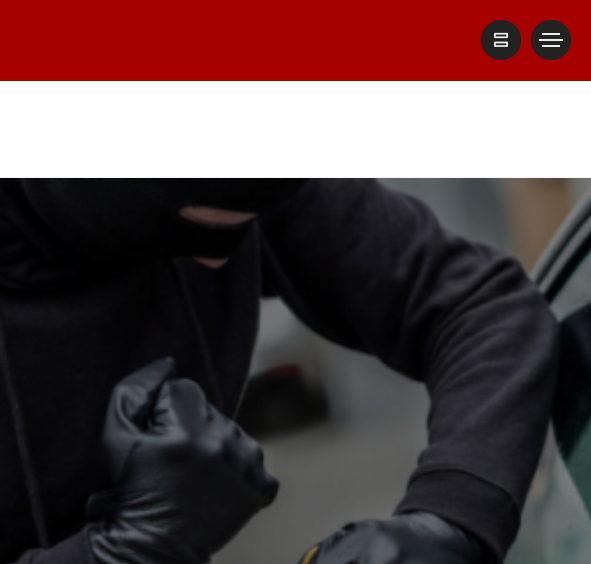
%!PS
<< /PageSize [591 564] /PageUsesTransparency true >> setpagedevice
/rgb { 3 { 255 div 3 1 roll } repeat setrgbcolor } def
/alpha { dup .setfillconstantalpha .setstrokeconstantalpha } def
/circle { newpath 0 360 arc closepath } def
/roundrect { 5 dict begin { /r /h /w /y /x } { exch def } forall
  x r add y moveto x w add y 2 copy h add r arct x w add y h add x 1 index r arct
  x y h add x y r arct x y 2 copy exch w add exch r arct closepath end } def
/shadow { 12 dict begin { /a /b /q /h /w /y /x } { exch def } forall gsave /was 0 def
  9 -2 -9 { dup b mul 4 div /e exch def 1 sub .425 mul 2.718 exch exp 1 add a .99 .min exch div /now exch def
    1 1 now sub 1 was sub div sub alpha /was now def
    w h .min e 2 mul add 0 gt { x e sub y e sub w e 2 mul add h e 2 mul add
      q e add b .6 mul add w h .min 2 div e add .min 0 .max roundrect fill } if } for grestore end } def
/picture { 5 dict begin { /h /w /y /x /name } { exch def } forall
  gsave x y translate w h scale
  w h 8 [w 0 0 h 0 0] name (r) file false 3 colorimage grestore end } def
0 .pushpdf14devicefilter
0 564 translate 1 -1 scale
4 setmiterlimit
255 255 255 rgb
0 0 591 564 rectfill
166 0 0 rgb
0 0 591 81 rectfill
34 34 34 rgb
501 40 20 circle fill
(img_01.rgb) 494 32 14 15 picture
551 40 20 circle fill
238 238 238 rgb
539 39 24 2 rectfill
542 33 18 2 rectfill
542 45 18 2 rectfill
0 0 0 rgb
0 179 591 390 0 1.5 0.15 shadow
(img_02.rgb) 0 178 591 386 picture
.poppdf14devicefilter showpage
